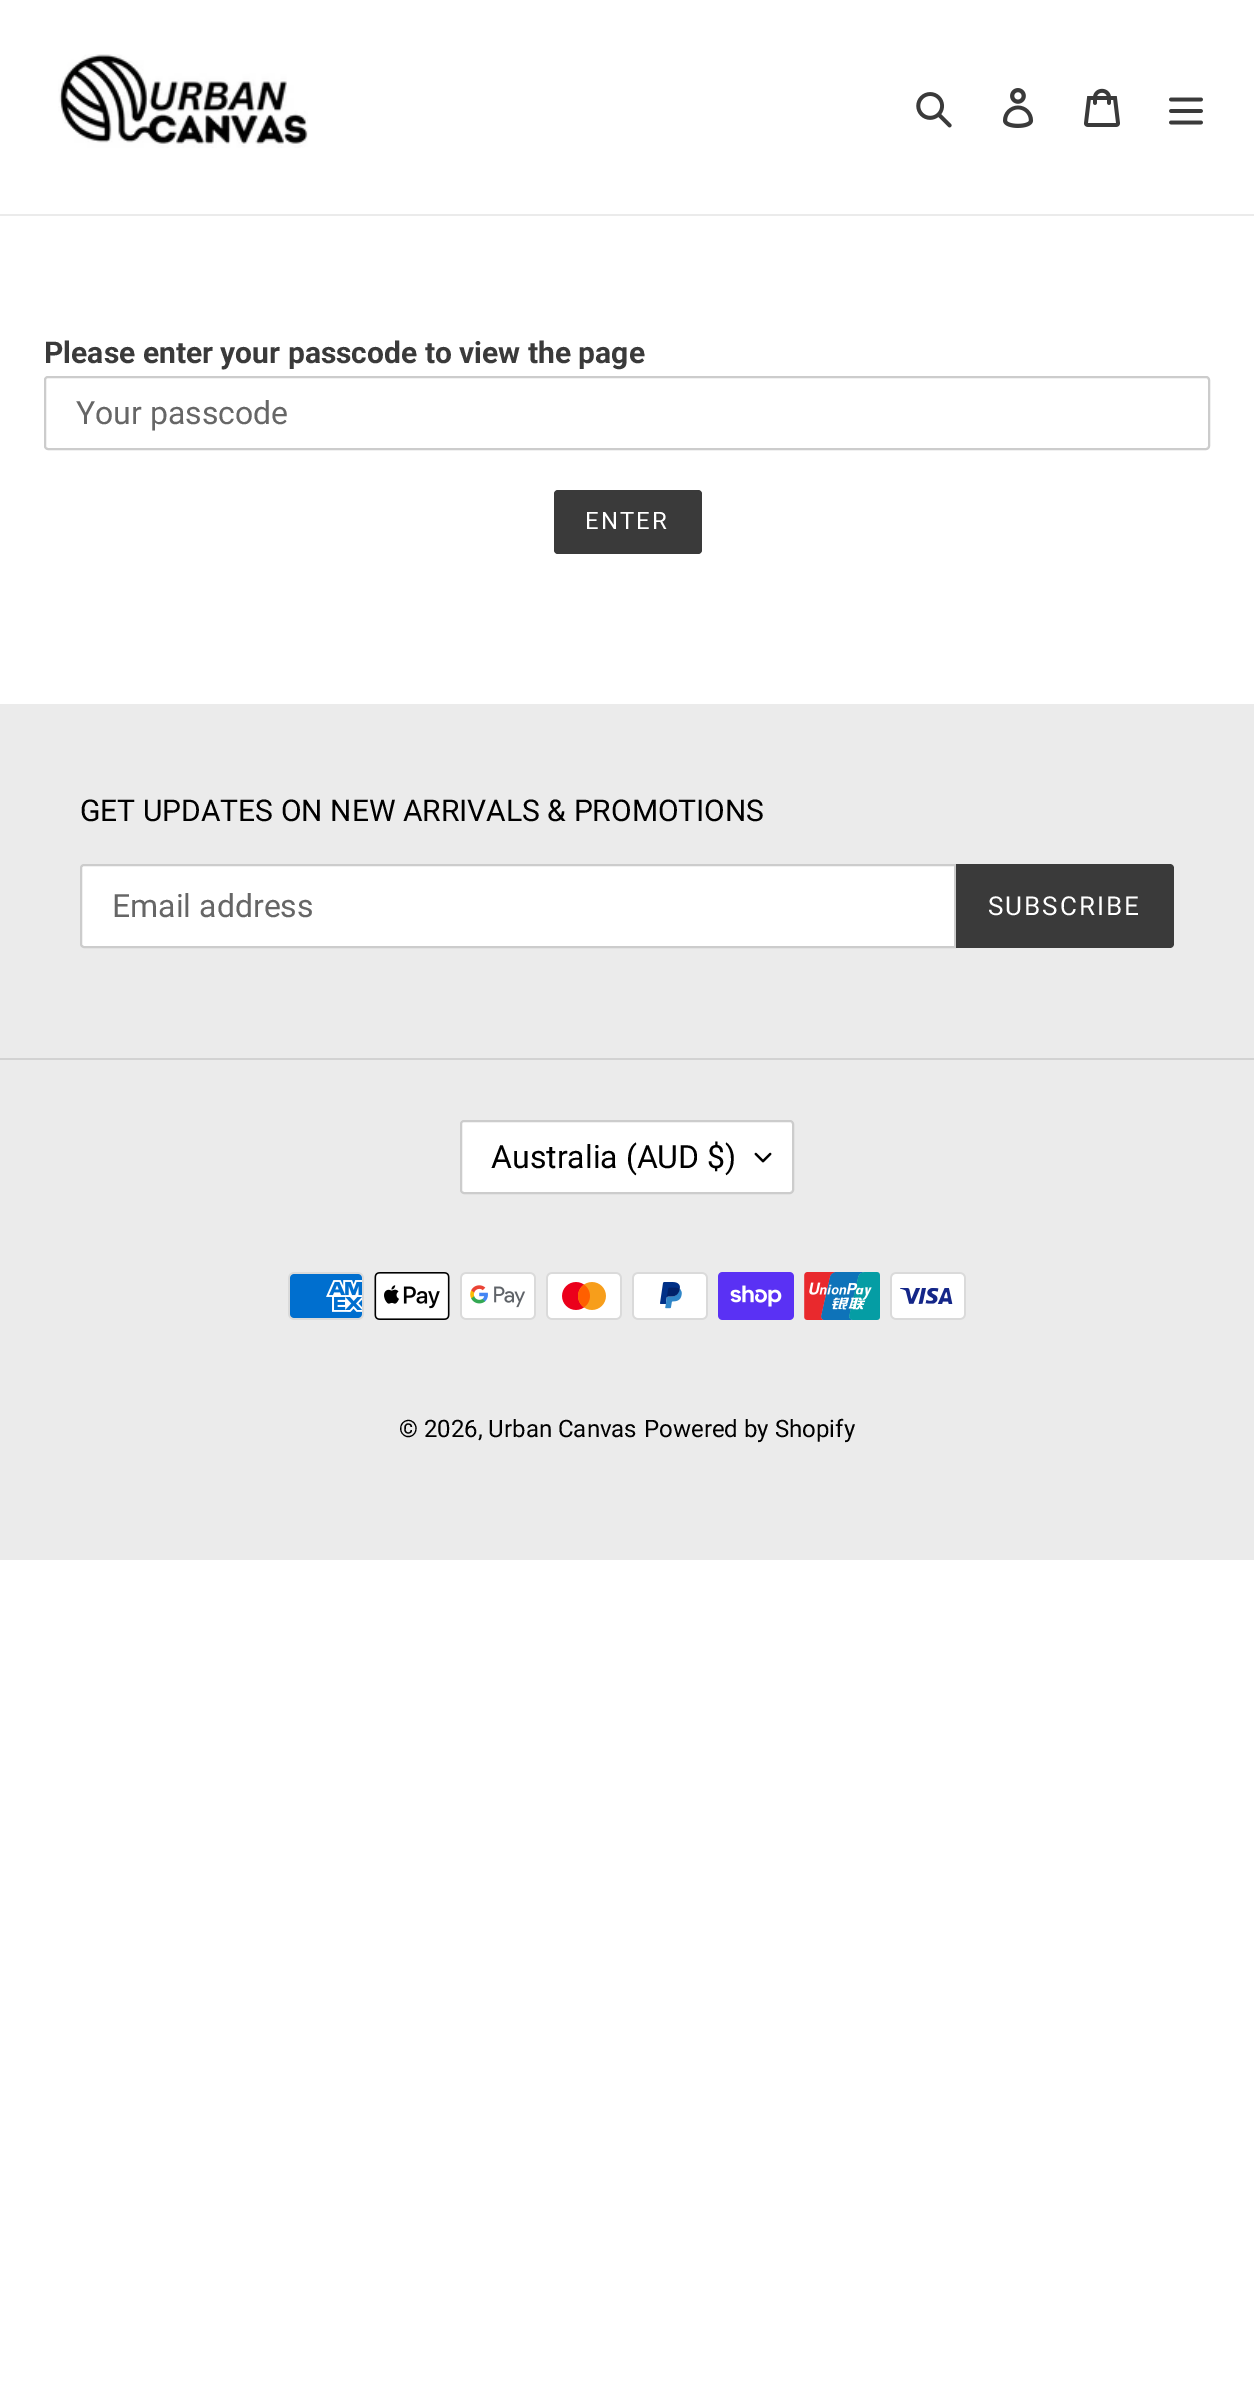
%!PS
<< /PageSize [1254 2385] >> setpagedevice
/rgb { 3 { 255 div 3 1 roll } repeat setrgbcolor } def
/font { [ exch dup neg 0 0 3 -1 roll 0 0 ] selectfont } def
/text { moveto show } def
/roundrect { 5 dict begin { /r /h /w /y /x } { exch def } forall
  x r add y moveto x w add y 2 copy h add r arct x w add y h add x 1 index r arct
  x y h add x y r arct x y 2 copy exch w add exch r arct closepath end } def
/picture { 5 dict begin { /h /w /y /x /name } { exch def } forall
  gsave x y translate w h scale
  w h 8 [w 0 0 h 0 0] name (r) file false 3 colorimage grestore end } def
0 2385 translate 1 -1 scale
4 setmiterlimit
255 255 255 rgb
0 0 1254 2385 rectfill
235 235 235 rgb
0 214 1254 2 rectfill
(img_01.rgb) 58 54 250 94 picture
(img_02.rgb) 916 92 36 36 picture
(img_03.rgb) 1003 88 31 40 picture
(img_04.rgb) 1084 88 36 39 picture
(img_05.rgb) 1169 97 34 28 picture
204 204 204 rgb
2 setlinewidth
45 377 1164 72 3 roundrect stroke
58 58 58 rgb
554 490 148 64 4 roundrect fill
235 235 235 rgb
0 704 1254 856 rectfill
255 255 255 rgb
84 865 moveto 871 0 rlineto 0 82 rlineto -871 0 rlineto -1.5 0 -3 -1.5 -3 -3 rcurveto 0 -76 rlineto 0 -1.5 1.5 -3 3 -3 rcurveto closepath gsave fill grestore
204 204 204 rgb
stroke
58 58 58 rgb
956 864 moveto 214 0 rlineto 2 0 4 2 4 4 rcurveto 0 76 rlineto 0 2 -2 4 -4 4 rcurveto -214 0 rlineto closepath fill
210 210 210 rgb
0 1058 1254 2 rectfill
255 255 255 rgb
460 1120 334 74 4 roundrect fill
(img_06.rgb) 754 1152 18 11 picture
204 204 204 rgb
461 1121 332 72 3 roundrect stroke
(img_07.rgb) 288 1272 76 48 picture
(img_08.rgb) 374 1272 76 48 picture
(img_09.rgb) 460 1272 76 48 picture
(img_10.rgb) 546 1272 76 48 picture
(img_11.rgb) 632 1272 76 48 picture
(img_12.rgb) 718 1272 76 48 picture
(img_13.rgb) 804 1272 76 48 picture
(img_14.rgb) 890 1272 76 48 picture
/Roboto-Bold 30 font
58 58 58 rgb
(Please enter your passcode to view the page) 44 363 text
/Roboto-Regular 32 font
102 102 102 rgb
(Your passcode) 76 424 text
/Roboto-Regular 24 font
255 255 255 rgb
585 529 moveto 2 0 (ENTER) ashow
/Roboto-Regular 30 font
0 0 0 rgb
(GET UPDATES ON NEW ARRIVALS & PROMOTIONS) 80 821 text
/Roboto-Regular 32 font
102 102 102 rgb
(Email address) 112 917 text
/Roboto-Regular 26 font
255 255 255 rgb
988 915 moveto 2 0 (SUBSCRIBE) ashow
/Roboto-Regular 32 font
0 0 0 rgb
(Australia \(AUD $\)) 491 1168 text
/Roboto-Regular 24 font
(© 2026, Urban Canvas) 399 1437 text
(Powered by Shopify) 644 1437 text
showpage
